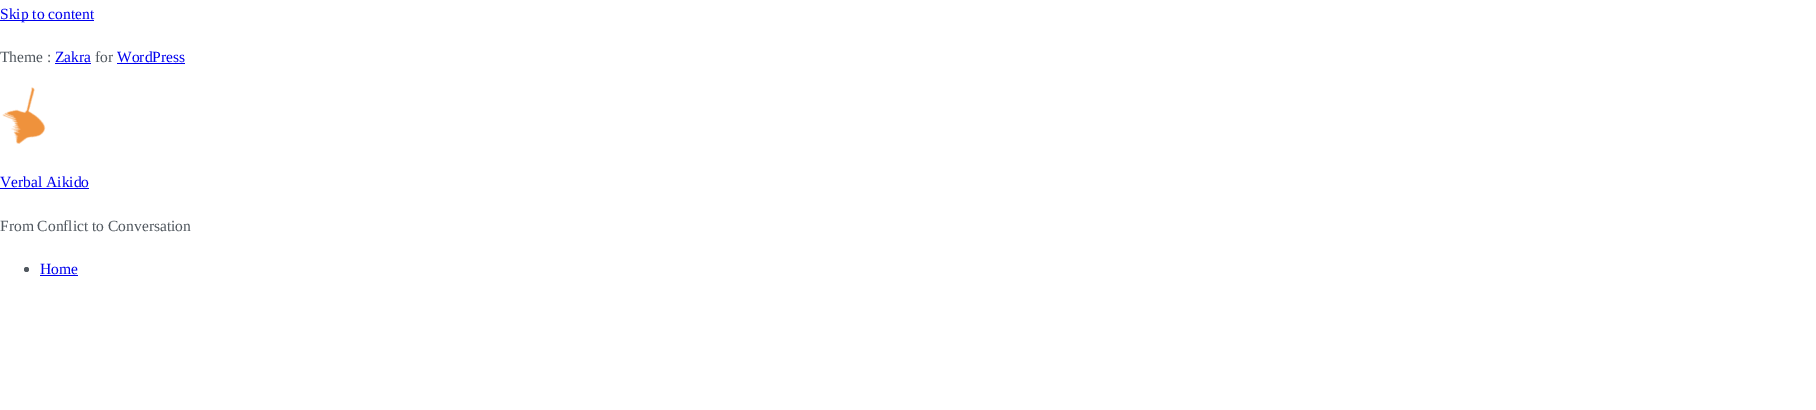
%!PS
<< /PageSize [1816 410] >> setpagedevice
/rgb { 3 { 255 div 3 1 roll } repeat setrgbcolor } def
/font { [ exch dup neg 0 0 3 -1 roll 0 0 ] selectfont } def
/text { moveto show } def
/circle { newpath 0 360 arc closepath } def
/picture { 5 dict begin { /h /w /y /x /name } { exch def } forall
  gsave x y translate w h scale
  w h 8 [w 0 0 h 0 0] name (r) file false 3 colorimage grestore end } def
0 410 translate 1 -1 scale
4 setmiterlimit
255 255 255 rgb
0 0 1816 410 rectfill
0 0 238 rgb
0 20 94 1 rectfill
55 63 36 1 rectfill
117 63 68 1 rectfill
(img_01.rgb) 2 87 44 57 picture
0 188 89 1 rectfill
81 88 95 rgb
26.5 269.5 2.5 circle fill
0 0 238 rgb
40 275 38 1 rectfill
/LiberationSerif-Regular 15.5 font
(Skip to content) 0 19 text
81 88 95 rgb
(Theme :) 0 62 text
0 0 238 rgb
(Zakra) 55 62 text
81 88 95 rgb
(for) 95 62 text
0 0 238 rgb
(WordPress) 117 62 text
(Verbal Aikido) 0 187 text
81 88 95 rgb
(From Conflict to Conversation) 0 231 text
0 0 238 rgb
(Home) 40 274 text
showpage
